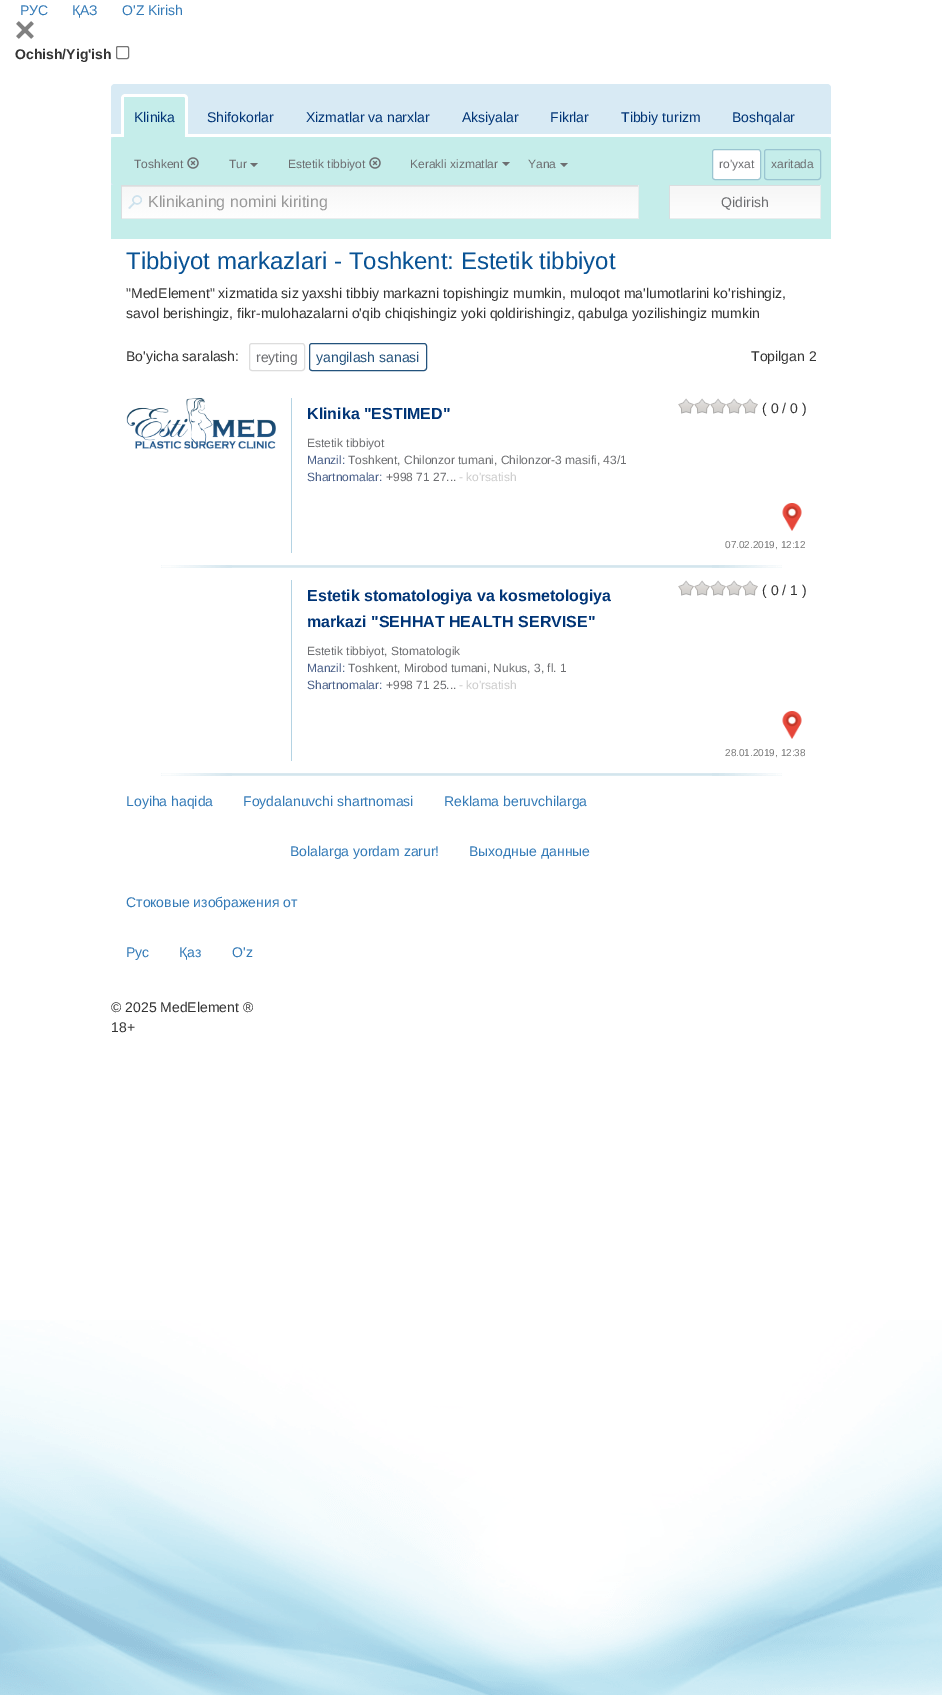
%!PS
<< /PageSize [942 1695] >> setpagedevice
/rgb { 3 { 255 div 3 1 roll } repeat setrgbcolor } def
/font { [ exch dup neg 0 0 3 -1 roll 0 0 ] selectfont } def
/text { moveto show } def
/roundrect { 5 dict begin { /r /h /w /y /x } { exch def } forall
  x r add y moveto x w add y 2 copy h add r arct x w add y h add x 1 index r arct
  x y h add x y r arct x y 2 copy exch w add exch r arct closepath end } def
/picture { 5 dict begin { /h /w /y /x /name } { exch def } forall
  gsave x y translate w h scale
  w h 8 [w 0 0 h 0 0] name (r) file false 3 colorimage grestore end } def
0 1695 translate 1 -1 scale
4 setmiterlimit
255 255 255 rgb
0 0 942 1695 rectfill
(img_01.rgb) 16 21 18 18 picture
118 118 118 rgb
116.5 46.5 12 12 1.5 roundrect stroke
216 234 244 rgb
111 84 720 155 4 roundrect fill
255 255 255 rgb
111 134 720 3 rectfill
197 237 234 rgb
125 94 moveto 59 0 rlineto 2 0 4 2 4 4 rcurveto 0 39 rlineto -67 0 rlineto 0 -39 rlineto 0 -2 2 -4 4 -4 rcurveto closepath fill
255 255 255 rgb
125 94 moveto 59 0 rlineto 2 0 4 2 4 4 rcurveto 0 39 rlineto -67 0 rlineto 0 -39 rlineto 0 -2 2 -4 4 -4 rcurveto closepath 125 97 moveto 59 0 rlineto 1 0 1 0 1 1 rcurveto 0 39 rlineto -61 0 rlineto 0 -40 rlineto closepath eofill
197 237 234 rgb
111 137 720 48 4 roundrect fill
(img_02.rgb) 187 157 12 12 picture
109 110 113 rgb
250 163 moveto 8 0 rlineto -4 4 rlineto closepath fill
(img_02.rgb) 369 157 12 12 picture
502 162 moveto 8 0 rlineto -4 4 rlineto closepath fill
560 163 moveto 8 0 rlineto -4 4 rlineto closepath fill
197 237 234 rgb
828 182 3 3 rectfill
255 255 255 rgb
712.5 149.5 48 30 2.5 roundrect gsave fill grestore
154 197 209 rgb
stroke
764.5 149.5 56 30 2.5 roundrect stroke
197 237 234 rgb
111 185 720 54 rectfill
(img_03.rgb) 122 187 516 31 picture
228 228 228 rgb
122 186 516 1 rectfill
218 221 223 rgb
121 185 518 1 rectfill
234 237 238 rgb
638 185 1 34 rectfill
121 218 518 1 rectfill
218 221 223 rgb
121 185 1 34 rectfill
gsave 670 186 moveto 150 0 rlineto 0 32 rlineto -150 0 rlineto closepath clip newpath
<< /ShadingType 2 /ColorSpace /DeviceRGB /Coords [745 186 745 218] /Extend [true true] /Function << /FunctionType 2 /Domain [0 1] /C0 [0.965 0.965 0.965] /C1 [0.996 0.996 0.996] /N 1 >> >> shfill grestore
669 185 152 1 rectfill
234 237 238 rgb
820 185 1 34 rectfill
669 218 152 1 rectfill
218 221 223 rgb
669 185 1 34 rectfill
221 221 221 rgb
249.5 343.5 55 27 2.5 roundrect stroke
35 82 124 rgb
309.5 343.5 117 27 2.5 roundrect stroke
(img_04.rgb) 126 398 150 51 picture
180 211 227 rgb
291 398 1 155 rectfill
(img_05.rgb) 678 398 16 16 picture
(img_05.rgb) 694 398 16 16 picture
(img_05.rgb) 710 398 16 16 picture
(img_05.rgb) 726 398 16 16 picture
(img_05.rgb) 742 398 16 16 picture
(img_06.rgb) 782 503 20 28 picture
(img_07.rgb) 161 565 621 3 picture
291 580 1 181 rectfill
(img_05.rgb) 678 580 16 16 picture
(img_05.rgb) 694 580 16 16 picture
(img_05.rgb) 710 580 16 16 picture
(img_05.rgb) 726 580 16 16 picture
(img_05.rgb) 742 580 16 16 picture
(img_08.rgb) 782 711 20 28 picture
(img_07.rgb) 161 773 621 3 picture
(img_09.rgb) 0 1320 942 375 picture
/LiberationSans-Regular 14 font
51 122 183 rgb
(РУС) 20 15 text
(ҚАЗ) 72 15 text
(O'Z Kirish) 122 15 text
/LiberationSans-Bold 14 font
51 51 51 rgb
(Ochish/Yig'ish) 15 59 text
/LiberationSans-Regular 14 font
0 52 118 rgb
(Klinika) 134 122 text
(Shifokorlar) 207 122 text
(Xizmatlar va narxlar) 306 122 text
(Aksiyalar) 462 122 text
(Fikrlar) 550 122 text
(Tibbiy turizm) 621 122 text
(Boshqalar) 732 122 text
/LiberationSans-Regular 12 font
109 110 113 rgb
(Toshkent) 134 168 text
(Tur) 229 168 text
(Estetik tibbiyot) 288 168 text
(Kerakli xizmatlar) 410 168 text
(Yana) 528 168 text
(ro'yxat) 719 168 text
(xaritada) 771 168 text
/LiberationSans-Regular 16 font
153 153 153 rgb
(Klinikaning nomini kiriting) 148 207 text
/LiberationSans-Regular 14 font
109 110 113 rgb
(Qidirish) 721 207 text
/LiberationSans-Regular 24 font
8 82 148 rgb
(Tibbiyot markazlari - Toshkent: Estetik tibbiyot) 126 269 text
/LiberationSans-Regular 14 font
51 51 51 rgb
("MedElement" xizmatida siz yaxshi tibbiy markazni topishingiz mumkin, muloqot ma'lumotlarini ko'rishingiz,) 126 298 text
(savol berishingiz, fikr-mulohazalarni o'qib chiqishingiz yoki qoldirishingiz, qabulga yozilishingiz mumkin) 126 318 text
(Bo'yicha saralash:) 126 361 text
109 110 113 rgb
(reyting) 256 362 text
35 82 124 rgb
(yangilash sanasi) 316 362 text
51 51 51 rgb
(Topilgan 2) 751 361 text
/LiberationSans-Bold 16 font
0 52 118 rgb
(Klinika "ESTIMED") 307 419 text
/LiberationSans-Regular 12 font
109 110 113 rgb
(Estetik tibbiyot) 307 447 text
72 94 136 rgb
(Manzil:) 307 464 text
109 110 113 rgb
(Toshkent, Chilonzor tumani, Chilonzor-3 masifi, 43/1) 348 464 text
72 94 136 rgb
(Shartnomalar:) 307 481 text
109 110 113 rgb
(+998 71 27...) 386 481 text
204 204 204 rgb
(- ko'rsatish) 459 481 text
/LiberationSans-Regular 14 font
51 51 51 rgb
(\( 0 / 0 \)) 762 413 text
/LiberationSans-Regular 10 font
119 119 119 rgb
(07.02.2019, 12:12) 725 548 text
/LiberationSans-Bold 16 font
0 52 118 rgb
(Estetik stomatologiya va kosmetologiya) 307 601 text
(markazi "SEHHAT HEALTH SERVISE") 307 627 text
/LiberationSans-Regular 12 font
109 110 113 rgb
(Estetik tibbiyot, Stomatologik) 307 655 text
72 94 136 rgb
(Manzil:) 307 672 text
109 110 113 rgb
(Toshkent, Mirobod tumani, Nukus, 3, fl. 1) 348 672 text
72 94 136 rgb
(Shartnomalar:) 307 689 text
109 110 113 rgb
(+998 71 25...) 386 689 text
204 204 204 rgb
(- ko'rsatish) 459 689 text
/LiberationSans-Regular 14 font
51 51 51 rgb
(\( 0 / 1 \)) 762 595 text
/LiberationSans-Regular 10 font
119 119 119 rgb
(28.01.2019, 12:38) 725 756 text
/LiberationSans-Regular 14 font
51 122 183 rgb
(Loyiha haqida) 126 806 text
(Foydalanuvchi shartnomasi) 243 806 text
(Reklama beruvchilarga) 444 806 text
(Bolalarga yordam zarur!) 290 856 text
(Выходные данные) 469 856 text
(Стоковые изображения от) 126 907 text
(Рус) 126 957 text
(Қаз) 179 957 text
(O'z) 232 957 text
51 51 51 rgb
(© 2025 MedElement ®) 111 1012 text
(18+) 111 1032 text
showpage
